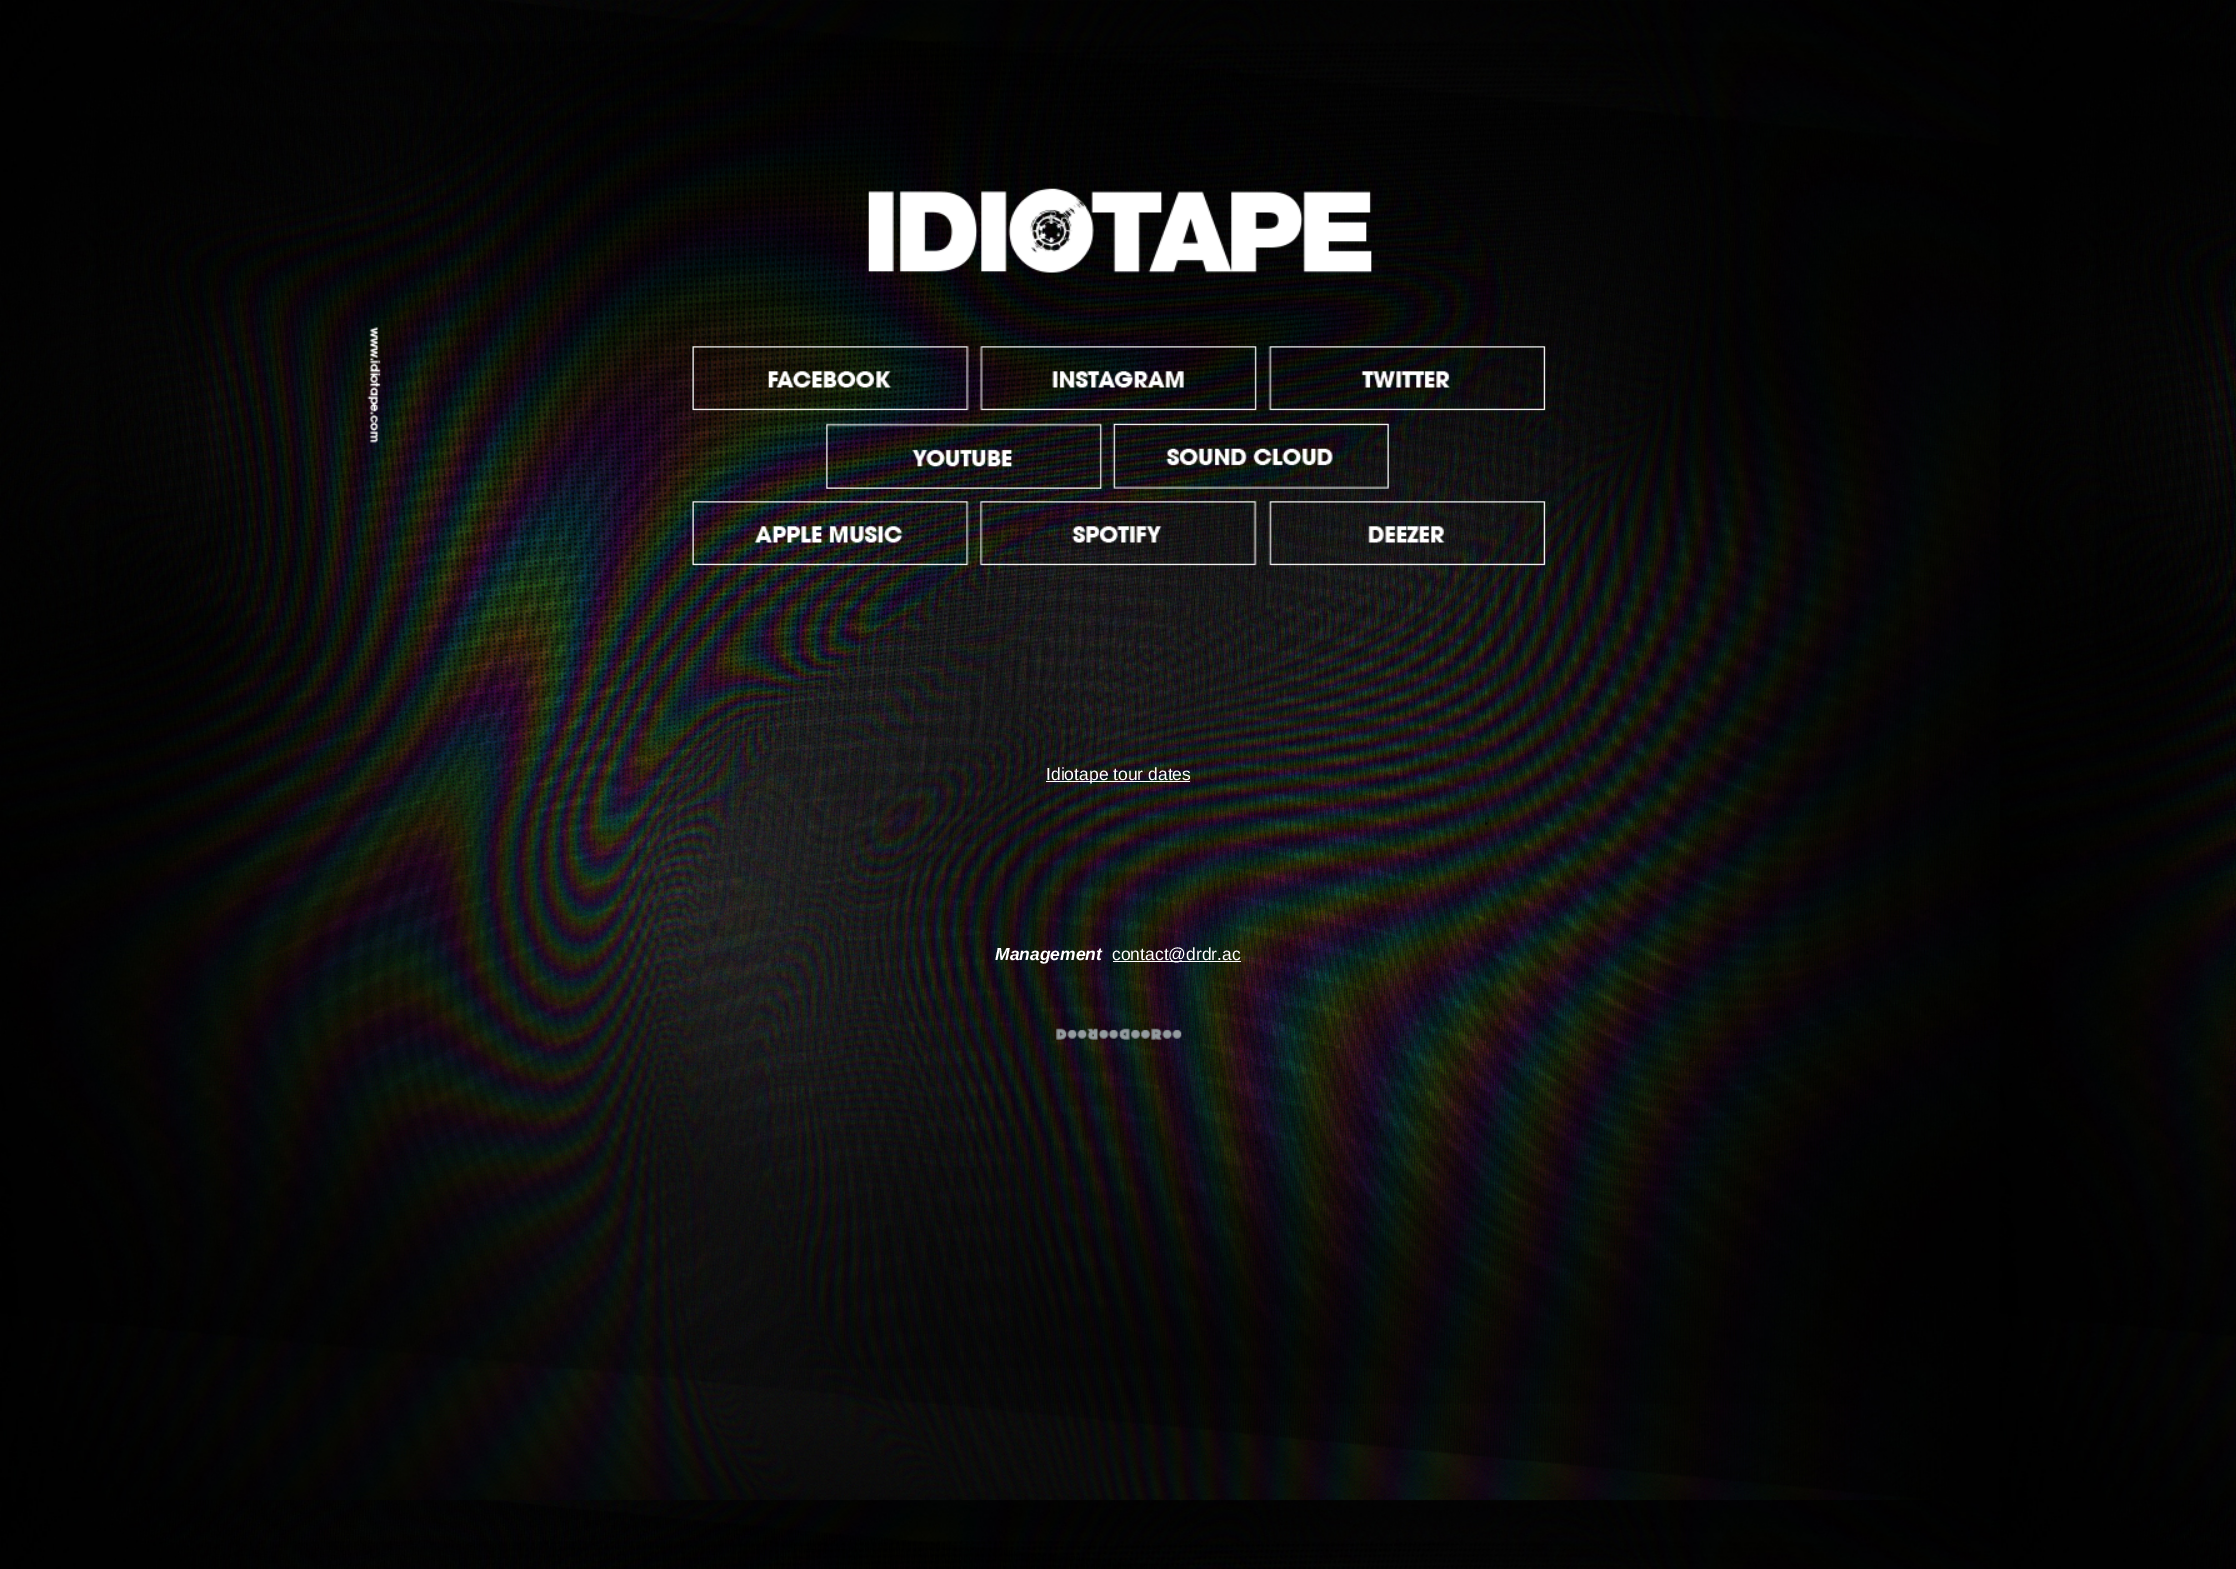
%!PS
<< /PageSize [2236 1569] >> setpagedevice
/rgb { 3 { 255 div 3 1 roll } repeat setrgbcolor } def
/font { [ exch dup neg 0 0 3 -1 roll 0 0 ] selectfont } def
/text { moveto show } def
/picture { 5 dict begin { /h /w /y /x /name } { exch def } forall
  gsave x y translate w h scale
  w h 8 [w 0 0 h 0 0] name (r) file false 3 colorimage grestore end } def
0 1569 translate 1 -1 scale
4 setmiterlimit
255 255 255 rgb
0 0 2236 1569 rectfill
(img_01.rgb) 0 0 2236 1569 picture
(img_02.rgb) 367 188 1179 378 picture
1046 781 144 1 rectfill
1113 961 128 1 rectfill
(img_03.rgb) 1056 1028 126 12 picture
/LiberationSans-Regular 17.5 font
(Idiotape tour dates) 1046 780 text
/LiberationSans-BoldItalic 17.5 font
(Management) 995 960 text
/LiberationSans-Regular 17.5 font
(contact@drdr.ac) 1112 960 text
showpage
